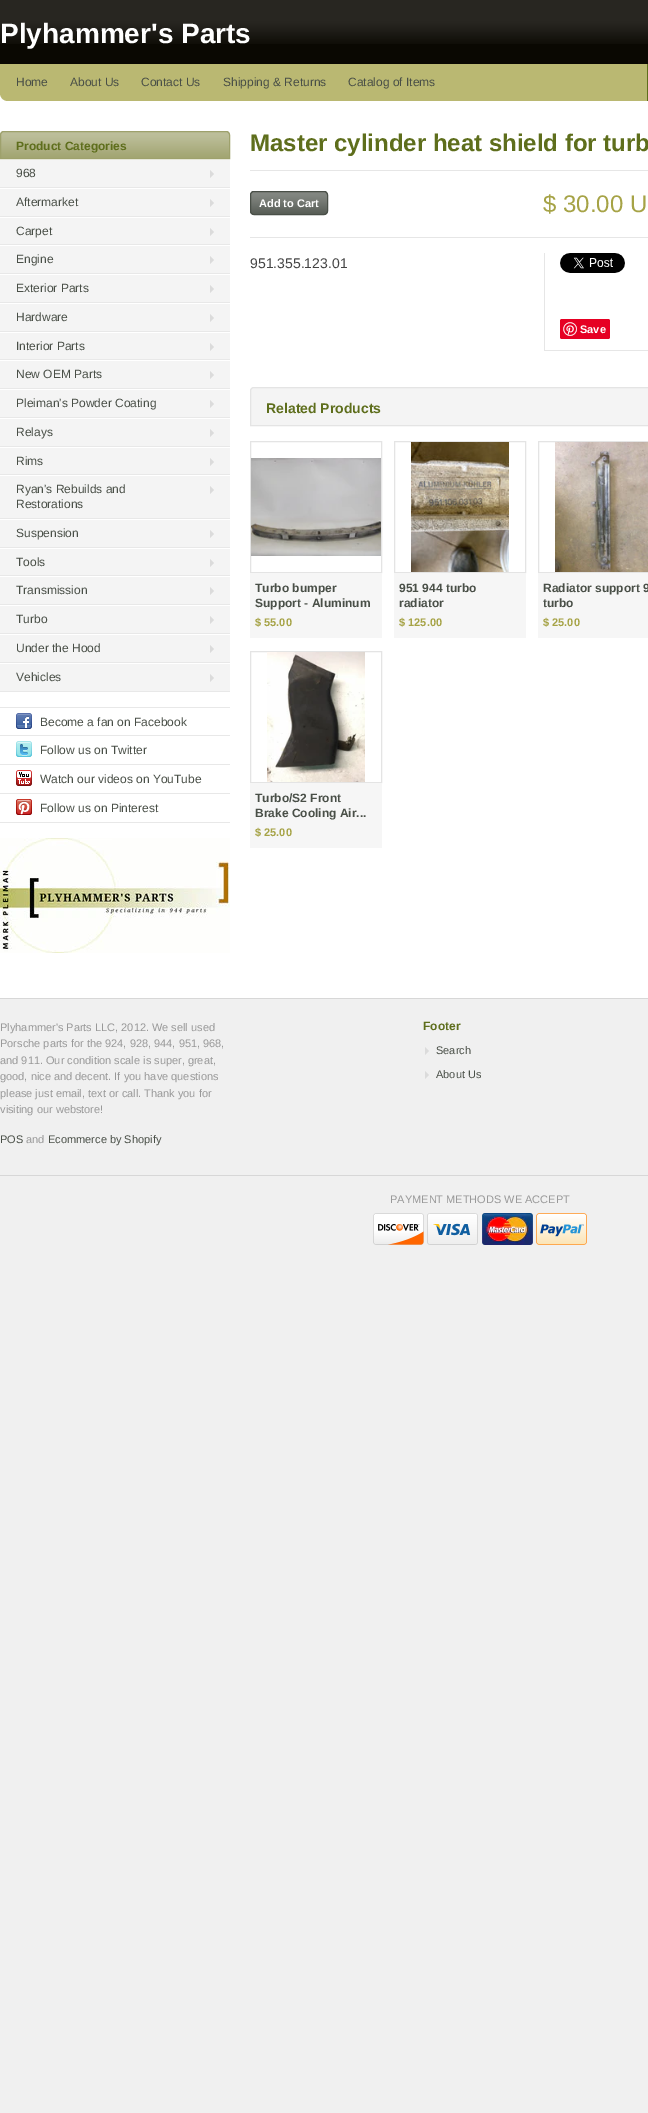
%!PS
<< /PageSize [648 2113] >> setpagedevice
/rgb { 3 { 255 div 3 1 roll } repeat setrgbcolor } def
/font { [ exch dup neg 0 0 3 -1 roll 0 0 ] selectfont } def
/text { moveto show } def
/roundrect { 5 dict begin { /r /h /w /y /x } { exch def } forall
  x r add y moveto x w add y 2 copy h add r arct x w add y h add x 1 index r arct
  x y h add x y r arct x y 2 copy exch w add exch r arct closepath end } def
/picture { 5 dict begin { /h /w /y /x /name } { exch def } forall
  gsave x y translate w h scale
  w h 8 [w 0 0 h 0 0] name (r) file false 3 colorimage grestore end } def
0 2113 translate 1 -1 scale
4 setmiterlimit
240 240 240 rgb
0 0 648 2113 rectfill
10 8 2 rgb
0 0 648 64 rectfill
(img_01.rgb) 0 0 648 44 picture
255 255 255 rgb
0 93 648 905 rectfill
186 184 114 rgb
0 64 moveto 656 0 rlineto 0 29 rlineto 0 4.5 -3.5 8 -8 8 rcurveto -640 0 rlineto -4.5 0 -8 -3.5 -8 -8 rcurveto closepath fill
94 110 28 rgb
647 64 1 37 rectfill
158 161 108 rgb
4 131 moveto 222 0 rlineto 2 0 4 2 4 4 rcurveto 0 24 rlineto -230 0 rlineto 0 -24 rlineto 0 -2 2 -4 4 -4 rcurveto closepath fill
(img_02.rgb) 0 132 230 26 picture
4 131.5 moveto 222 0 rlineto 2 0 3.5 1.5 3.5 3.5 rcurveto 0 23.5 rlineto -229 0 rlineto 0 -23.5 rlineto 0 -2 1.5 -3.5 3.5 -3.5 rcurveto closepath stroke
244 244 244 rgb
0 160 230 27 rectfill
232 232 232 rgb
0 187 230 1 rectfill
219 219 219 rgb
210 178 moveto 0 -8 rlineto 4 4 rlineto closepath fill
244 244 244 rgb
0 189 230 27 rectfill
232 232 232 rgb
0 216 230 1 rectfill
219 219 219 rgb
210 207 moveto 0 -8 rlineto 4 4 rlineto closepath fill
244 244 244 rgb
0 218 230 26 rectfill
232 232 232 rgb
0 244 230 1 rectfill
219 219 219 rgb
210 236 moveto 0 -8 rlineto 4 4 rlineto closepath fill
244 244 244 rgb
0 246 230 27 rectfill
232 232 232 rgb
0 273 230 1 rectfill
219 219 219 rgb
210 264 moveto 0 -8 rlineto 4 4 rlineto closepath fill
244 244 244 rgb
0 275 230 27 rectfill
232 232 232 rgb
0 302 230 1 rectfill
219 219 219 rgb
210 293 moveto 0 -8 rlineto 4 4 rlineto closepath fill
244 244 244 rgb
0 304 230 27 rectfill
232 232 232 rgb
0 331 230 1 rectfill
219 219 219 rgb
210 322 moveto 0 -8 rlineto 4 4 rlineto closepath fill
244 244 244 rgb
0 333 230 26 rectfill
232 232 232 rgb
0 359 230 1 rectfill
219 219 219 rgb
210 351 moveto 0 -8 rlineto 4 4 rlineto closepath fill
244 244 244 rgb
0 361 230 27 rectfill
232 232 232 rgb
0 388 230 1 rectfill
219 219 219 rgb
210 379 moveto 0 -8 rlineto 4 4 rlineto closepath fill
244 244 244 rgb
0 390 230 27 rectfill
232 232 232 rgb
0 417 230 1 rectfill
219 219 219 rgb
210 408 moveto 0 -8 rlineto 4 4 rlineto closepath fill
244 244 244 rgb
0 419 230 27 rectfill
232 232 232 rgb
0 446 230 1 rectfill
219 219 219 rgb
210 437 moveto 0 -8 rlineto 4 4 rlineto closepath fill
244 244 244 rgb
0 448 230 26 rectfill
232 232 232 rgb
0 474 230 1 rectfill
219 219 219 rgb
210 466 moveto 0 -8 rlineto 4 4 rlineto closepath fill
244 244 244 rgb
0 476 230 42 rectfill
232 232 232 rgb
0 518 230 1 rectfill
219 219 219 rgb
210 494 moveto 0 -8 rlineto 4 4 rlineto closepath fill
244 244 244 rgb
0 520 230 27 rectfill
232 232 232 rgb
0 547 230 1 rectfill
219 219 219 rgb
210 538 moveto 0 -8 rlineto 4 4 rlineto closepath fill
244 244 244 rgb
0 549 230 26 rectfill
232 232 232 rgb
0 575 230 1 rectfill
219 219 219 rgb
210 567 moveto 0 -8 rlineto 4 4 rlineto closepath fill
244 244 244 rgb
0 577 230 27 rectfill
232 232 232 rgb
0 604 230 1 rectfill
219 219 219 rgb
210 595 moveto 0 -8 rlineto 4 4 rlineto closepath fill
244 244 244 rgb
0 606 230 27 rectfill
232 232 232 rgb
0 633 230 1 rectfill
219 219 219 rgb
210 624 moveto 0 -8 rlineto 4 4 rlineto closepath fill
244 244 244 rgb
0 635 230 27 rectfill
232 232 232 rgb
0 662 230 1 rectfill
219 219 219 rgb
210 653 moveto 0 -8 rlineto 4 4 rlineto closepath fill
244 244 244 rgb
0 664 230 27 rectfill
232 232 232 rgb
0 691 230 1 rectfill
219 219 219 rgb
210 682 moveto 0 -8 rlineto 4 4 rlineto closepath fill
232 232 232 rgb
0 707 230 1 rectfill
(img_03.rgb) 16 713 16 16 picture
0 735 230 1 rectfill
(img_04.rgb) 16 741 16 16 picture
0 764 230 1 rectfill
(img_05.rgb) 16 770 16 16 picture
0 793 230 1 rectfill
(img_06.rgb) 16 799 16 16 picture
0 822 230 1 rectfill
(img_07.rgb) 0 838 230 115 picture
230 230 230 rgb
250 170 398 1 rectfill
250 237 398 1 rectfill
73 79 71 rgb
250 191 78 24 4 roundrect fill
(img_08.rgb) 250 192 78 23 picture
250.5 191.5 77 23 3.5 roundrect stroke
230 230 230 rgb
544 350 104 1 rectfill
544 253 1 98 rectfill
(img_09.rgb) 560 253 65 20 picture
230 0 35 rgb
560 319 50 20 2 roundrect fill
(img_10.rgb) 563 322 14 14 picture
244 244 244 rgb
254 387.5 moveto 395 0 rlineto 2 0 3.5 1.5 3.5 3.5 rcurveto 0 34.5 rlineto -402 0 rlineto 0 -34.5 rlineto 0 -2 1.5 -3.5 3.5 -3.5 rcurveto closepath gsave fill grestore
228 228 228 rgb
stroke
250.5 441.5 131 131 rectstroke
(img_11.rgb) 251 458 130 98 picture
246 246 246 rgb
250 573 132 65 rectfill
228 228 228 rgb
394.5 441.5 131 131 rectstroke
(img_12.rgb) 411 442 98 130 picture
246 246 246 rgb
394 573 132 65 rectfill
228 228 228 rgb
538.5 441.5 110 131 rectstroke
(img_13.rgb) 555 442 93 130 picture
246 246 246 rgb
538 573 110 65 rectfill
228 228 228 rgb
250.5 651.5 131 131 rectstroke
(img_14.rgb) 267 652 98 130 picture
246 246 246 rgb
250 783 132 65 rectfill
215 215 215 rgb
0 998 648 1 rectfill
219 219 219 rgb
425 1055 moveto 0 -8 rlineto 4 4 rlineto closepath fill
425 1079 moveto 0 -8 rlineto 4 4 rlineto closepath fill
215 215 215 rgb
0 1175 648 1 rectfill
(img_15.rgb) 373 1213 51 32 picture
(img_16.rgb) 427 1213 51 32 picture
(img_17.rgb) 482 1213 51 32 picture
(img_18.rgb) 536 1213 51 32 picture
/LiberationSans-Bold 28 font
255 255 255 rgb
(Plyhammer's Parts) 0 43 text
/LiberationSans-Regular 12 font
73 79 71 rgb
(Home) 16 86 text
(About Us) 70 86 text
(Contact Us) 141 86 text
(Shipping & Returns) 223 86 text
(Catalog of Items) 348 86 text
/LiberationSans-Bold 12 font
94 110 28 rgb
(Product Categories) 16 150 text
/LiberationSans-Regular 12 font
73 79 71 rgb
(968) 16 177 text
(Aftermarket) 16 206 text
(Carpet) 16 235 text
(Engine) 16 263 text
(Exterior Parts) 16 292 text
(Hardware) 16 321 text
(Interior Parts) 16 350 text
(New OEM Parts) 16 378 text
(Pleiman's Powder Coating) 16 407 text
(Relays) 16 436 text
(Rims) 16 465 text
(Ryan's Rebuilds and) 16 493 text
(Restorations) 16 508 text
(Suspension) 16 537 text
(Tools) 16 566 text
(Transmission) 16 594 text
(Turbo) 16 623 text
(Under the Hood) 16 652 text
(Vehicles) 16 681 text
(Become a fan on Facebook) 40 726 text
(Follow us on Twitter) 40 754 text
(Watch our videos on YouTube) 40 783 text
(Follow us on Pinterest) 40 812 text
/LiberationSans-Bold 24 font
94 110 28 rgb
(Master cylinder heat shield for turb) 250 151 text
/LiberationSans-Bold 11 font
255 255 255 rgb
(Add to Cart) 259 207 text
/LiberationSans-Regular 24 font
166 163 70 rgb
($ 30.00 U) 543 212 text
/LiberationSans-Regular 14 font
68 68 68 rgb
(951.355.123.01) 250 268 text
/LiberationSans-Bold 11 font
255 255 255 rgb
(Save) 580 333 text
/LiberationSans-Bold 14 font
94 110 28 rgb
(Related Products) 266 413 text
/LiberationSans-Bold 12 font
73 79 71 rgb
(Turbo bumper) 255 592 text
(Support - Aluminum) 255 607 text
/LiberationSans-Bold 11 font
166 163 70 rgb
($ 55.00) 255 626 text
/LiberationSans-Bold 12 font
73 79 71 rgb
(951 944 turbo) 399 592 text
(radiator) 399 607 text
/LiberationSans-Bold 11 font
166 163 70 rgb
($ 125.00) 399 626 text
/LiberationSans-Bold 12 font
73 79 71 rgb
(Radiator support 9) 543 592 text
(turbo) 543 607 text
/LiberationSans-Bold 11 font
166 163 70 rgb
($ 25.00) 543 626 text
/LiberationSans-Bold 12 font
73 79 71 rgb
(Turbo/S2 Front) 255 802 text
(Brake Cooling Air...) 255 817 text
/LiberationSans-Bold 11 font
166 163 70 rgb
($ 25.00) 255 836 text
/LiberationSans-Regular 11 font
153 153 153 rgb
(Plyhammer's Parts LLC, 2012. We sell used) 0 1031 text
(Porsche parts for the 924, 928, 944, 951, 968,) 0 1047 text
(and 911. Our condition scale is super, great,) 0 1064 text
(good, nice and decent. If you have questions) 0 1080 text
(please just email, text or call. Thank you for) 0 1097 text
(visiting our webstore!) 0 1113 text
73 79 71 rgb
(POS) 0 1143 text
153 153 153 rgb
(and) 26 1143 text
73 79 71 rgb
(Ecommerce by Shopify) 48 1143 text
/LiberationSans-Bold 12 font
94 110 28 rgb
(Footer) 423 1030 text
/LiberationSans-Regular 11 font
73 79 71 rgb
(Search) 436 1054 text
(About Us) 436 1078 text
153 153 153 rgb
(PAYMENT METHODS WE ACCEPT) 390 1203 text
showpage
